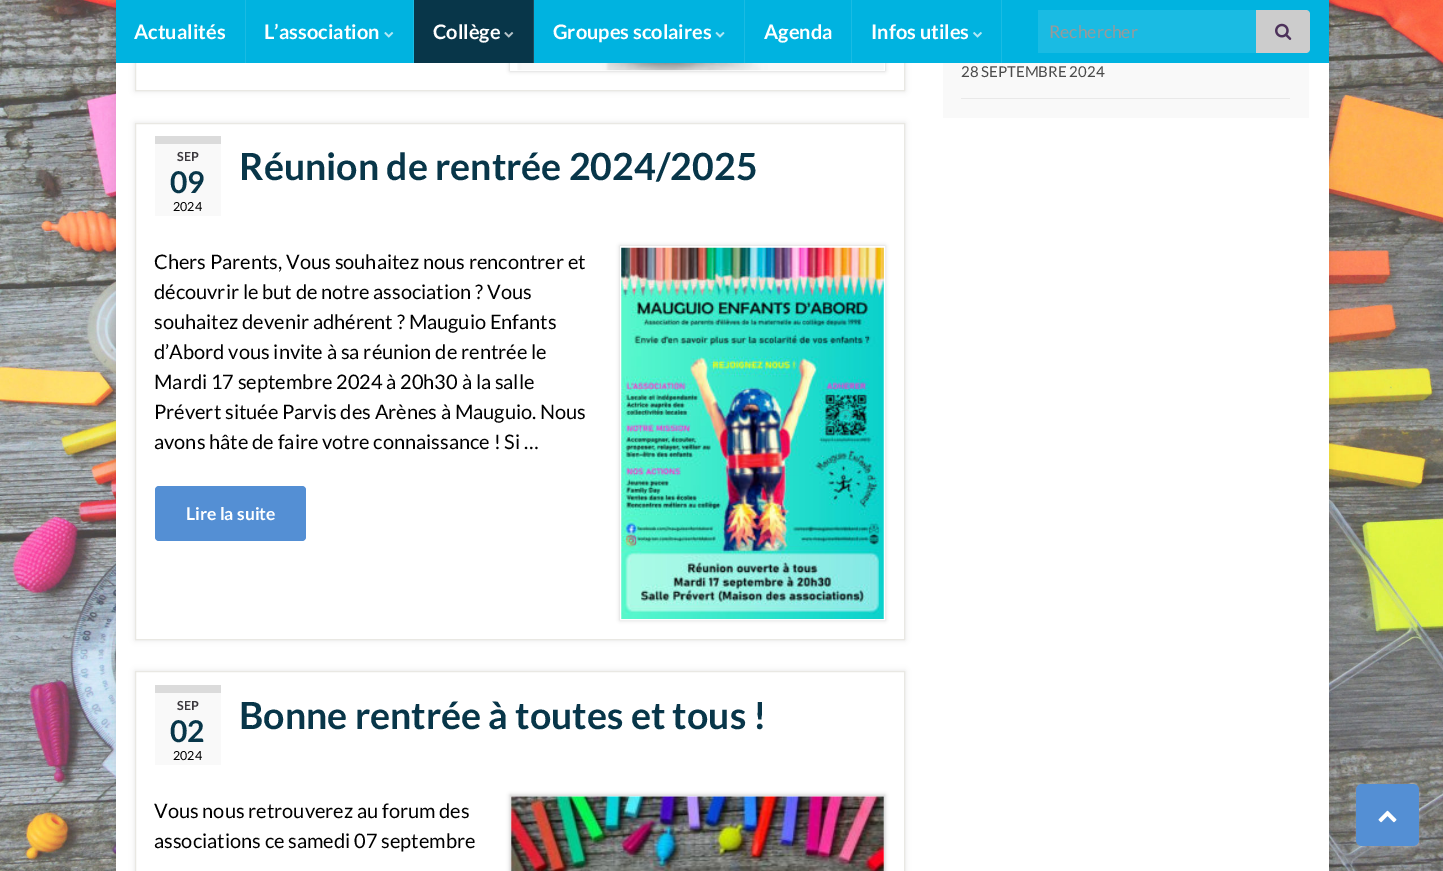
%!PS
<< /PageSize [1443 871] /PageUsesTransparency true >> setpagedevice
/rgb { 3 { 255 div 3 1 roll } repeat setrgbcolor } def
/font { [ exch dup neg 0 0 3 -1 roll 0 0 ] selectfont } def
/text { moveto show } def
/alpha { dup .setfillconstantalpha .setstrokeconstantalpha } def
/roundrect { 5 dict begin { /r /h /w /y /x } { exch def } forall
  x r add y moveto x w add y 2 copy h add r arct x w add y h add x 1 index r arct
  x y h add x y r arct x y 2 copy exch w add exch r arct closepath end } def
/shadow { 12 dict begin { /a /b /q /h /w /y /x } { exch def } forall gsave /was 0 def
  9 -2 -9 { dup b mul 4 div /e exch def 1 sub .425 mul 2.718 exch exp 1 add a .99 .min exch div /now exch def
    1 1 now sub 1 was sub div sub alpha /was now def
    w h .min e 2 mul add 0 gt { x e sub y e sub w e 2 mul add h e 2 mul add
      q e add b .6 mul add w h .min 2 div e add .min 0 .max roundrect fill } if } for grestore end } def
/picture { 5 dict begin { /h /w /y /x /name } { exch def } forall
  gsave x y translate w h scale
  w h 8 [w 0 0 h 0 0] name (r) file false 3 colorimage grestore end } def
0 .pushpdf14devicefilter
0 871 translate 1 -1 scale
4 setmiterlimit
255 255 255 rgb
0 0 1443 871 rectfill
(img_01.rgb) 0 0 1443 871 picture
0 0 0 rgb
116 -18 1213 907 0 6 0.1 shadow
255 255 255 rgb
116 63 1213 808 rectfill
gsave
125 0 moveto 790 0 rlineto 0 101 rlineto -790 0 rlineto closepath 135 -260 moveto 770 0 rlineto 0 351 rlineto -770 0 rlineto closepath eoclip newpath
0 0 0 rgb
135 -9 770 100 0 3 0.1 shadow
grestore
233 232 227 rgb
135.5 -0.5 769 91 rectstroke
gsave
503 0 moveto 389 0 rlineto 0 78 rlineto -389 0 rlineto closepath 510 -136 moveto 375 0 rlineto 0 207 rlineto -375 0 rlineto closepath eoclip newpath
0 0 0 rgb
510 -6 375 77 0 2 0.2 shadow
grestore
0 179 224 rgb
116 0 1213 63 rectfill
26 187 227 rgb
245 0 1 63 rectfill
413 0 1 63 rectfill
(img_02.rgb) 384 32 10 6 picture
8 54 73 rgb
414 0 119 63 rectfill
33 74 91 rgb
533 0 1 63 rectfill
(img_03.rgb) 504 32 10 6 picture
26 187 227 rgb
744 0 1 63 rectfill
(img_04.rgb) 715 32 10 6 picture
851 0 1 63 rectfill
1001 0 1 63 rectfill
(img_05.rgb) 973 32 9 6 picture
1038 10 218 43 rectfill
204 204 204 rgb
1256 10 moveto 50 0 rlineto 2 0 4 2 4 4 rcurveto 0 35 rlineto 0 2 -2 4 -4 4 rcurveto -50 0 rlineto closepath fill
(img_06.rgb) 1275 23 17 17 picture
249 249 249 rgb
943 63 366 55 rectfill
233 233 233 rgb
961 98 329 1 rectfill
(img_07.rgb) 517 63 367 8 picture
gsave
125 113 moveto 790 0 rlineto 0 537 rlineto -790 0 rlineto closepath 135 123 moveto 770 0 rlineto 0 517 rlineto -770 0 rlineto closepath eoclip newpath
0 0 0 rgb
135 123 770 517 0 3 0.1 shadow
grestore
233 232 227 rgb
135.5 123.5 769 516 rectstroke
249 249 249 rgb
155 144 66 72 rectfill
219 219 219 rgb
155 136 66 8 rectfill
0 0 0 rgb
620 246 265 374 0 2 0.2 shadow
255 255 255 rgb
620.5 246.5 264 373 rectstroke
(img_08.rgb) 621 247 263 372 picture
84 143 212 rgb
155 486 151 55 4 roundrect fill
0 0 0 rgb
135 671 770 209 0 3 0.1 shadow
255 255 255 rgb
135.5 671.5 moveto 769 0 rlineto 0 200 rlineto -769 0 rlineto closepath gsave fill grestore
233 232 227 rgb
stroke
249 249 249 rgb
155 693 66 72 rectfill
219 219 219 rgb
155 685 66 8 rectfill
0 0 0 rgb
510 795 375 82 0 2 0.2 shadow
(img_09.rgb) 511 796 373 75 picture
255 255 255 rgb
1356 784 63 62 6 1 0.3 shadow
84 143 212 rgb
1356 784 63 62 6 roundrect fill
(img_10.rgb) 1378 810 19 13 picture
/Lato-Bold 20 font
255 255 255 rgb
(Actualités) 134 39 text
(L’association) 264 39 text
(Collège) 433 39 text
(Groupes scolaires) 553 39 text
(Agenda) 764 39 text
(Infos utiles) 871 39 text
/Lato-Regular 17.5 font
153 153 153 rgb
(Rechercher) 1049 38 text
/Lato-Regular 15 font
75 75 75 rgb
(28 SEPTEMBRE 2024) 961 77 text
/Lato-Bold 12.5 font
59 56 61 rgb
(SEP) 177 161 text
/Lato-Bold 30 font
8 54 73 rgb
(09) 170 193 text
/Lato-Regular 12.5 font
0 0 0 rgb
(2024) 173 211 text
/Lato-Bold 37.5 font
8 54 73 rgb
(Réunion de rentrée 2024/2025) 239 180 text
/Lato-Regular 20 font
0 0 0 rgb
(Chers Parents, Vous souhaitez nous rencontrer et) 154 269 text
(découvrir le but de notre association ? Vous) 154 299 text
(souhaitez devenir adhérent ? Mauguio Enfants) 154 329 text
(d’Abord vous invite à sa réunion de rentrée le) 154 359 text
(Mardi 17 septembre 2024 à 20h30 à la salle) 154 389 text
(Prévert située Parvis des Arènes à Mauguio. Nous) 154 419 text
(avons hâte de faire votre connaissance ! Si …) 154 449 text
/Lato-Bold 17.5 font
255 255 255 rgb
(Lire la suite) 186 520 text
/Lato-Bold 12.5 font
59 56 61 rgb
(SEP) 177 710 text
/Lato-Bold 30 font
8 54 73 rgb
(02) 170 742 text
/Lato-Regular 12.5 font
0 0 0 rgb
(2024) 173 760 text
/Lato-Bold 37.5 font
8 54 73 rgb
(Bonne rentrée à toutes et tous !) 239 729 text
/Lato-Regular 20 font
0 0 0 rgb
(Vous nous retrouverez au forum des) 154 818 text
(associations ce samedi 07 septembre) 154 848 text
.poppdf14devicefilter showpage
